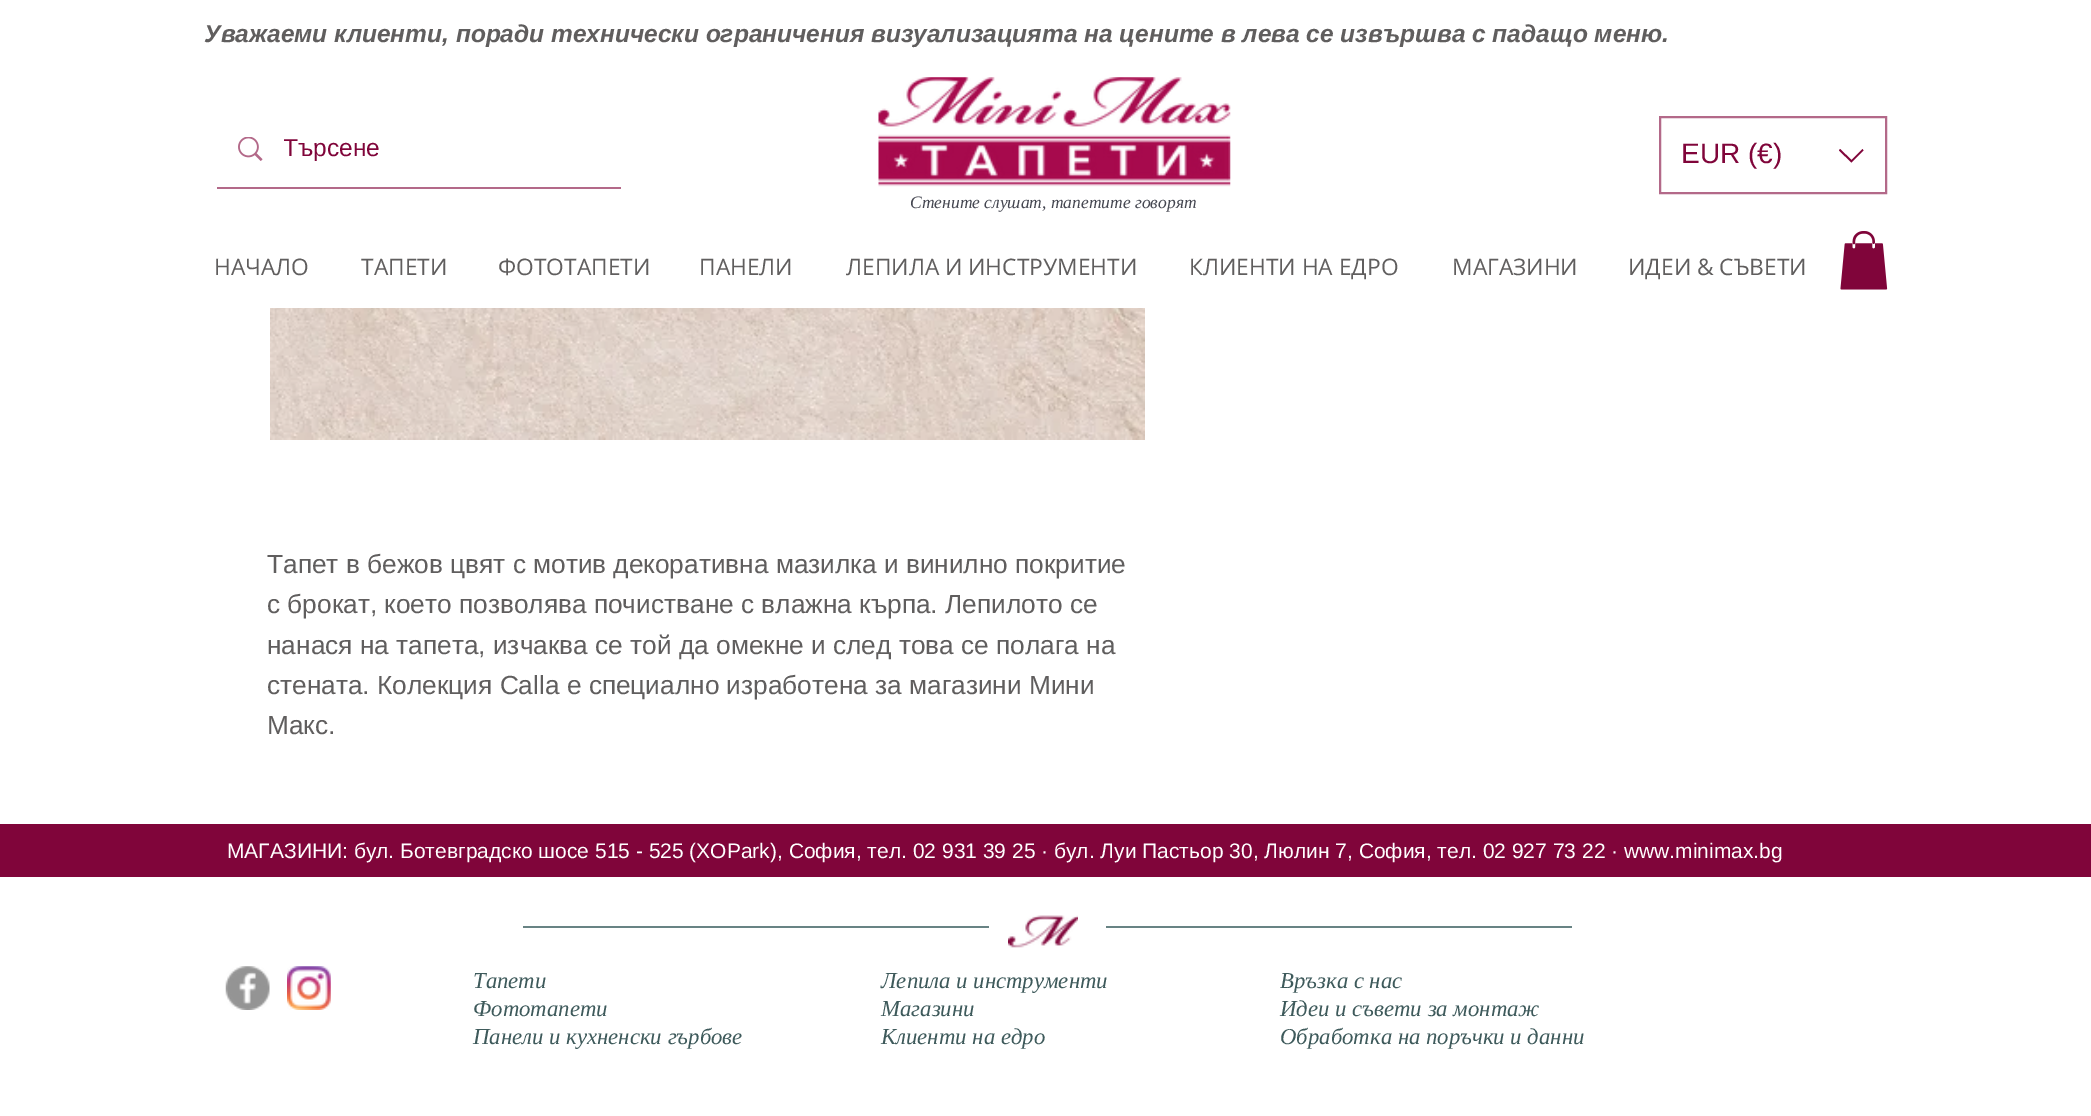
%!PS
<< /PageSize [2091 1116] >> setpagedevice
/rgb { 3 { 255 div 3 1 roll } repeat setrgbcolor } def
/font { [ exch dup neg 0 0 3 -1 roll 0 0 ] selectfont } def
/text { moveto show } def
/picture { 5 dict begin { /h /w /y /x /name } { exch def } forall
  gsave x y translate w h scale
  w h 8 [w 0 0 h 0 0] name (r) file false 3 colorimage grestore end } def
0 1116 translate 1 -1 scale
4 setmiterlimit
255 255 255 rgb
0 0 2091 1116 rectfill
179 105 137 rgb
217 187 404 2 rectfill
(img_01.rgb) 238 137 25 24 picture
(img_02.rgb) 878 77 353 110 picture
(img_03.rgb) 1840 231 48 59 picture
2 setlinewidth
1660 117 226 76 rectstroke
128 5 58 rgb
1862.5 149 moveto 1 1.5 rlineto -12 12 rlineto -12.5 -12 rlineto 1 -1.5 rlineto 11.5 11 rlineto closepath eofill
(img_04.rgb) 270 308 875 132 picture
0 824 2091 53 rectfill
104 131 132 rgb
523 926 466 2 rectfill
(img_05.rgb) 1008 915 70 33 picture
1106 926 466 2 rectfill
(img_06.rgb) 225 966 45 44 picture
(img_07.rgb) 287 966 44 44 picture
/LiberationSans-BoldItalic 24.5 font
96 94 94 rgb
(Уважаеми клиенти, поради технически ограничения визуализацията на цените в лева се извършва с падащо меню.) 204 42 text
gsave
284 133 264 28 rectclip
/LiberationSans-Regular 24.5 font
128 5 58 rgb
(Търсене) 283 156 text
grestore
/OpenSans-Regular 22.75 font
(НАЧАЛО) 214 275 text
(ТАПЕТИ) 361 275 text
(ФОТОТАПЕТИ) 498 275 text
(ПАНЕЛИ) 699 275 text
(ЛЕПИЛА И ИНСТРУМЕНТИ) 846 275 text
(КЛИЕНТИ НА ЕДРО) 1189 275 text
(МАГАЗИНИ) 1452 275 text
(ИДЕИ & СЪВЕТИ) 1628 275 text
/LiberationSans-Regular 28 font
128 5 58 rgb
(EUR \(€\)) 1681 163 text
/LiberationSerif-Italic 17.5 font
69 71 81 rgb
(Стените слушат, тапетите говорят) 910 208 text
/LiberationSans-Regular 26.25 font
96 94 94 rgb
(Тапет в бежов цвят с мотив декоративна мазилка и винилно покритие) 267 573 text
(с брокат, което позволява почистване с влажна кърпа. Лепилото се) 267 613 text
(нанася на тапета, изчаква се той да омекне и след това се полага на) 267 654 text
(стената. Колекция Calla е специално изработена за магазини Мини) 267 694 text
(Макс.) 267 734 text
/LiberationSans-Regular 21 font
255 255 255 rgb
(МАГАЗИНИ: бул. Ботевградско шосе 515 - 525 \(XOPark\), София, тел. 02 931 39 25 · бул. Луи Пастьор 30, Люлин 7, София, тел. 02 927 73 22 · www.minimax.bg) 227 858 text
/LiberationSerif-Italic 22.75 font
62 90 91 rgb
(Тапети) 473 988 text
(Фототапети) 473 1016 text
(Панели и кухненски гърбове) 473 1044 text
(Лепила и инструменти) 881 988 text
(Магазини) 881 1016 text
(Клиенти на едро) 881 1044 text
(Връзка с нас) 1280 988 text
(Идеи и съвети за монтаж) 1280 1016 text
(Обработка на поръчки и данни) 1280 1044 text
showpage
